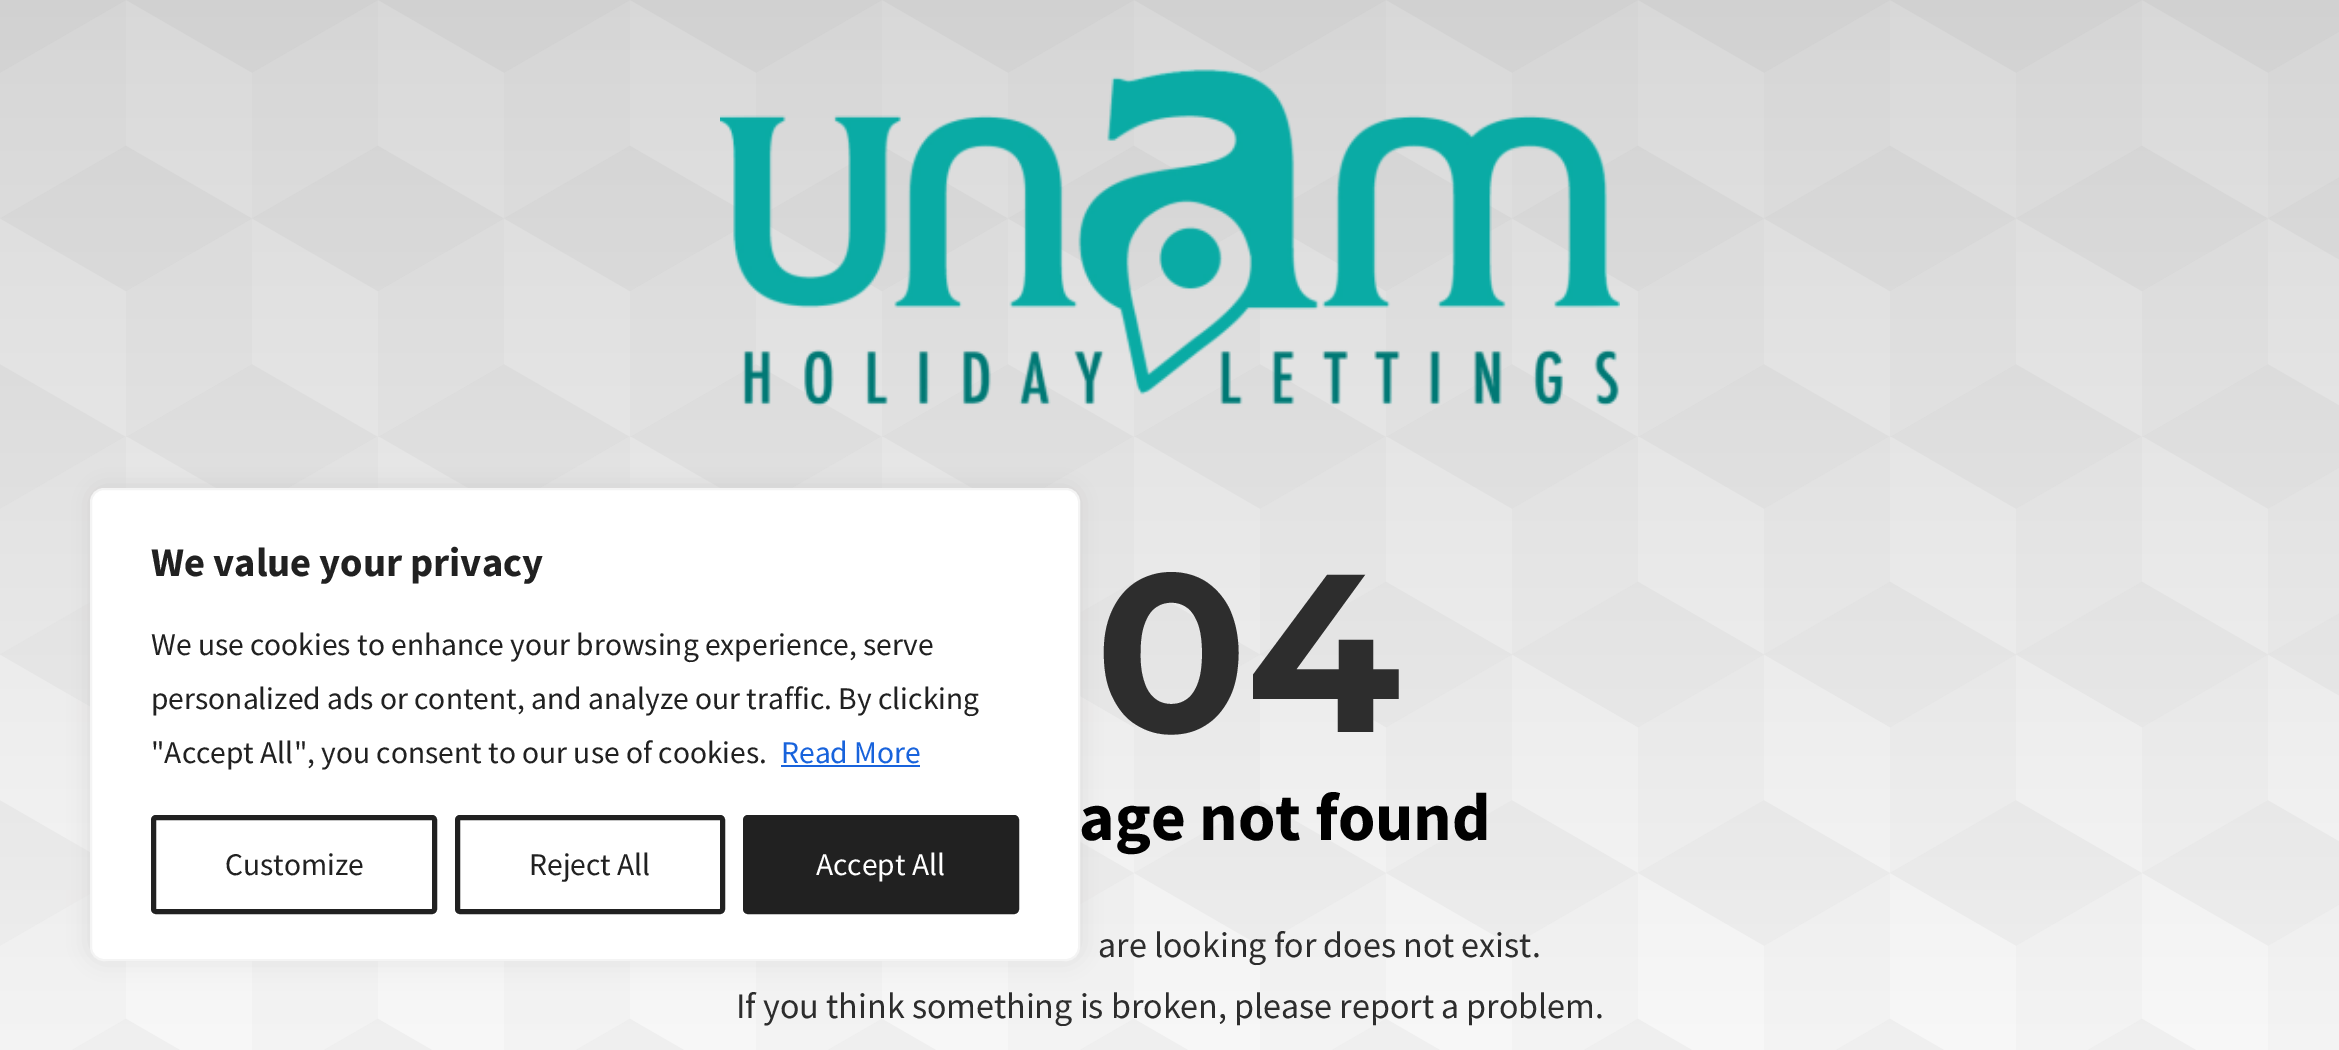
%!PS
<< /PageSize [2339 1050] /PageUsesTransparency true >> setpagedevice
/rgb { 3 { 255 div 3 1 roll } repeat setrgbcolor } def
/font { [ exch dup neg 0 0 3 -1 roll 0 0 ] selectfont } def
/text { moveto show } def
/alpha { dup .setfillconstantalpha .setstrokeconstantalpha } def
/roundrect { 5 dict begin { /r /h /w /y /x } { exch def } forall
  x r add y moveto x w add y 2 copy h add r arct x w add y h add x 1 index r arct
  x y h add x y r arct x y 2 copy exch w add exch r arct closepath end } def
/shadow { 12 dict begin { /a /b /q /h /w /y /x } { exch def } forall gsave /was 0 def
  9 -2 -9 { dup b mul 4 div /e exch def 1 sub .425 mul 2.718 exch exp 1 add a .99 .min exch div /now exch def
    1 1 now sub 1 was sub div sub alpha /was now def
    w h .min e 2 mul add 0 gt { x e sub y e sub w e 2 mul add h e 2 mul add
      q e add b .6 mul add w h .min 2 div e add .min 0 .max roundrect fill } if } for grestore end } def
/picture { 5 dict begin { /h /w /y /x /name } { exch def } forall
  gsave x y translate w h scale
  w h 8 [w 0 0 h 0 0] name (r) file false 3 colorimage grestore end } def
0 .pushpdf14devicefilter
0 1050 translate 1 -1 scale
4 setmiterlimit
255 255 255 rgb
0 0 2339 1050 rectfill
gsave 0 0 moveto 2339 0 rlineto 0 1050 rlineto -2339 0 rlineto closepath clip newpath
<< /ShadingType 2 /ColorSpace /DeviceRGB /Coords [1170 0 1170 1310] /Extend [true true] /Function << /FunctionType 2 /Domain [0 1] /C0 [0.847 0.847 0.847] /C1 [1 1 1] /N 1 >> >> shfill grestore
(img_01.rgb) 0 0 2339 1050 picture
172 171 171 rgb
90 486 990 473 14 11 0.3 shadow
255 255 255 rgb
91 489 988 471 13 roundrect gsave fill grestore
244 244 244 rgb
2 setlinewidth
stroke
24 99 220 rgb
781 765 139 2 rectfill
33 33 33 rgb
5 setlinewidth
153.5 817.5 281 94 2.5 roundrect stroke
457.5 817.5 265 94 2.5 roundrect stroke
745.5 817.5 271 94 2.5 roundrect gsave fill grestore
stroke
(img_02.rgb) 720 69 900 337 picture
/SourceSansPro-Bold 40.5 font
(We value your privacy) 151 576 text
/SourceSansPro-Regular 31.5 font
(We use cookies to enhance your browsing experience, serve) 151 655 text
(personalized ads or content, and analyze our traffic. By clicking) 151 709 text
("Accept All", you consent to our use of cookies.) 151 763 text
24 99 220 rgb
(Read More) 781 763 text
33 33 33 rgb
(Customize) 225 875 text
(Reject All) 529 875 text
255 255 255 rgb
(Accept All) 816 875 text
/Montserrat-Bold 225 font
45 45 45 rgb
1095 732 moveto -2 0 (04) ashow
/SourceSansPro-Bold 67.5 font
0 0 0 rgb
(age not found) 1079 840 text
/SourceSansPro-Regular 36 font
45 45 45 rgb
(are looking for does not exist.) 1098 957 text
(If you think something is broken, please report a problem.) 736 1018 text
.poppdf14devicefilter showpage
